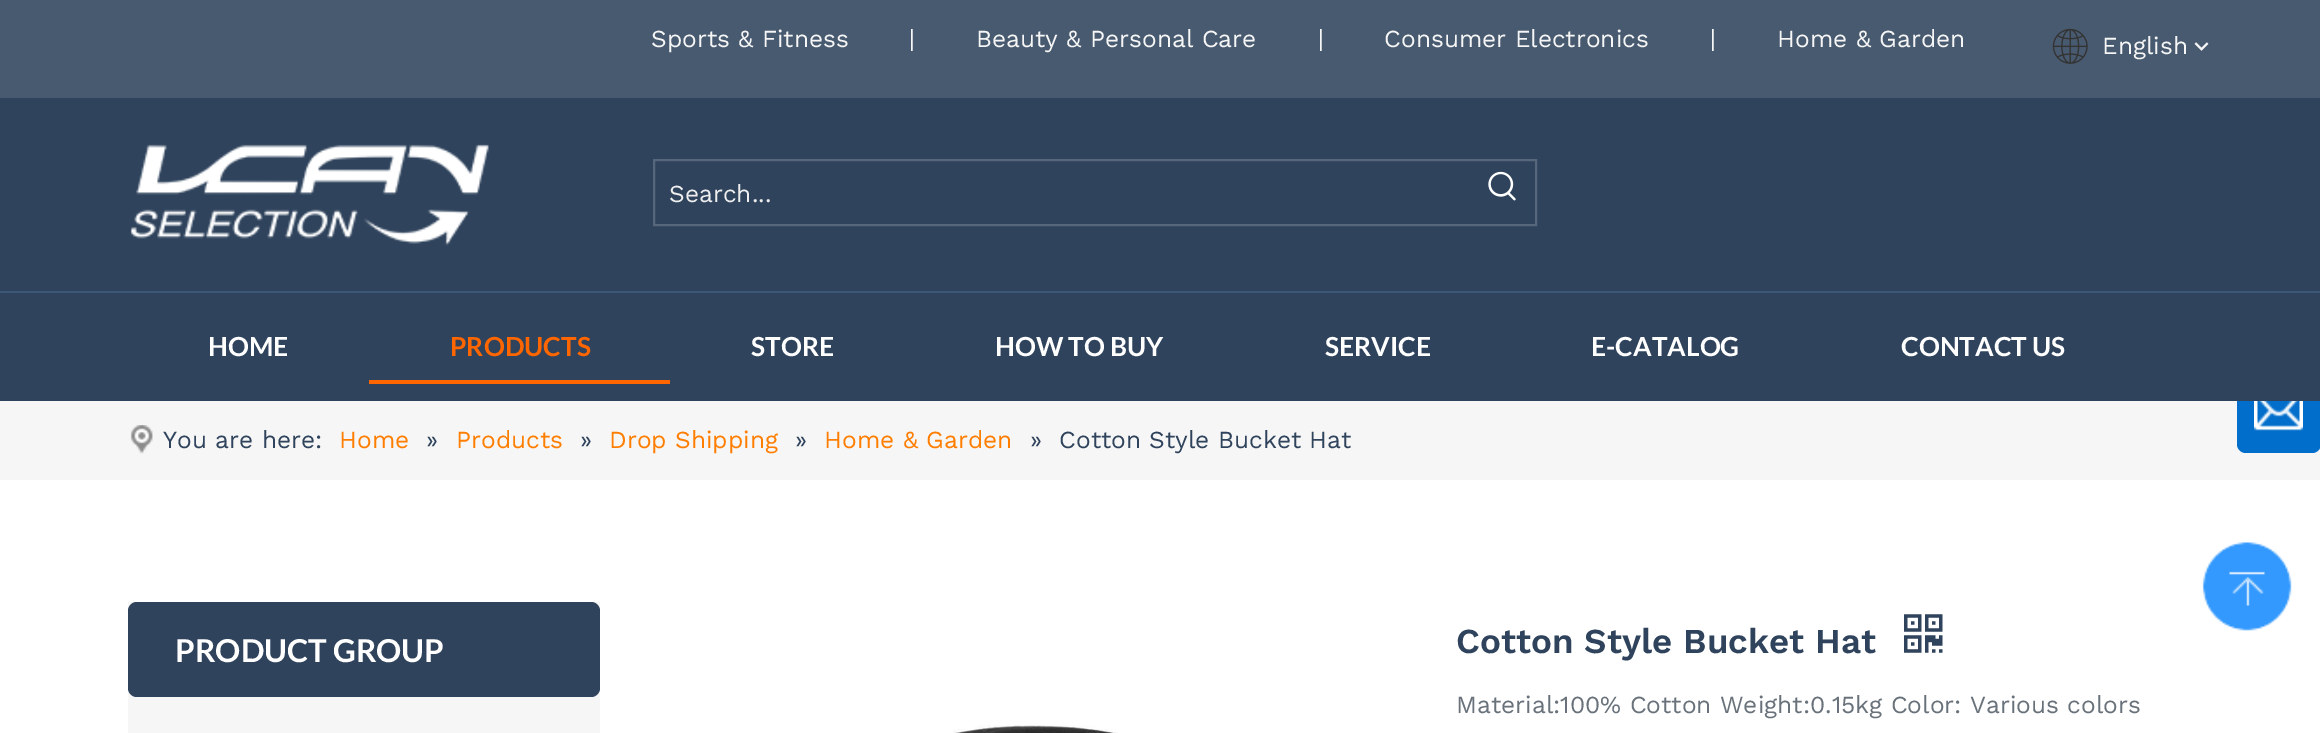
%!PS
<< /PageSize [2320 733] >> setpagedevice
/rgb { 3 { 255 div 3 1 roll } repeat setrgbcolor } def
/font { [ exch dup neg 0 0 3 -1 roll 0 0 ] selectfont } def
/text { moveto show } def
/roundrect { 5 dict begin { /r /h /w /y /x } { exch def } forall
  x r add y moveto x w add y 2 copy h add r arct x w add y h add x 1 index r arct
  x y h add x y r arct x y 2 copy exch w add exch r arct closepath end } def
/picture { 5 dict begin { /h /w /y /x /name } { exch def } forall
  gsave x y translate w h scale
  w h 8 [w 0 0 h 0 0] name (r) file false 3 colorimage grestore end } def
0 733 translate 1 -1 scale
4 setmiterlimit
255 255 255 rgb
0 0 2320 733 rectfill
72 90 112 rgb
0 0 2320 98 rectfill
(img_01.rgb) 2052 28 36 36 picture
(img_02.rgb) 2194 42 15 9 picture
47 67 92 rgb
0 98 2320 193 rectfill
(img_03.rgb) 130 144 359 102 picture
87 103 123 rgb
2 setlinewidth
654 160 882 65 rectstroke
(img_04.rgb) 1488 171 28 30 picture
246 246 246 rgb
0 401 2320 79 rectfill
1 110 203 rgb
2237 369 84 84 9 roundrect fill
47 67 92 rgb
0 293 2320 108 rectfill
61 87 120 rgb
0 291 2320 2 rectfill
255 102 0 rgb
369 380 301 4 rectfill
(img_05.rgb) 2254 401 49 30 picture
(img_06.rgb) 130 425 23 29 picture
246 246 246 rgb
128 602 472 131 rectfill
47 67 92 rgb
128 602 472 95 9 roundrect fill
(img_07.rgb) 1904 614 39 39 picture
(img_08.rgb) 953 725 165 8 picture
(img_09.rgb) 2202 542 90 89 picture
/WorkSans-Regular 24.5 font
246 246 246 rgb
(Sports & Fitness) 651 47 text
(|) 909 47 text
(Beauty & Personal Care) 976 47 text
(|) 1318 47 text
(Consumer Electronics) 1384 47 text
(|) 1710 47 text
(Home & Garden) 1777 47 text
(English) 2102 54 text
238 238 238 rgb
(Search...) 669 202 text
/Lato-Bold 26.25 font
255 255 255 rgb
(HOME) 208 356 text
255 102 0 rgb
(PRODUCTS) 450 356 text
255 255 255 rgb
(STORE) 751 356 text
(HOW TO BUY) 995 356 text
(SERVICE) 1325 356 text
(E-CATALOG) 1591 356 text
(CONTACT US) 1901 356 text
/WorkSans-Regular 24.5 font
47 67 92 rgb
(You are here:) 163 448 text
255 126 0 rgb
(Home) 339 448 text
47 67 92 rgb
(») 426 448 text
255 126 0 rgb
(Products) 456 448 text
47 67 92 rgb
(») 580 448 text
255 126 0 rgb
(Drop Shipping) 609 448 text
47 67 92 rgb
(») 795 448 text
255 126 0 rgb
(Home & Garden) 824 448 text
47 67 92 rgb
(») 1030 448 text
(Cotton Style Bucket Hat) 1059 448 text
/Lato-Bold 31.5 font
255 255 255 rgb
(PRODUCT GROUP) 175 662 text
/WorkSans-SemiBold 35 font
47 67 92 rgb
(Cotton Style Bucket Hat) 1456 653 text
/WorkSans-Regular 24.5 font
105 114 123 rgb
(Material:100% Cotton Weight:0.15kg Color: Various colors) 1456 713 text
showpage
